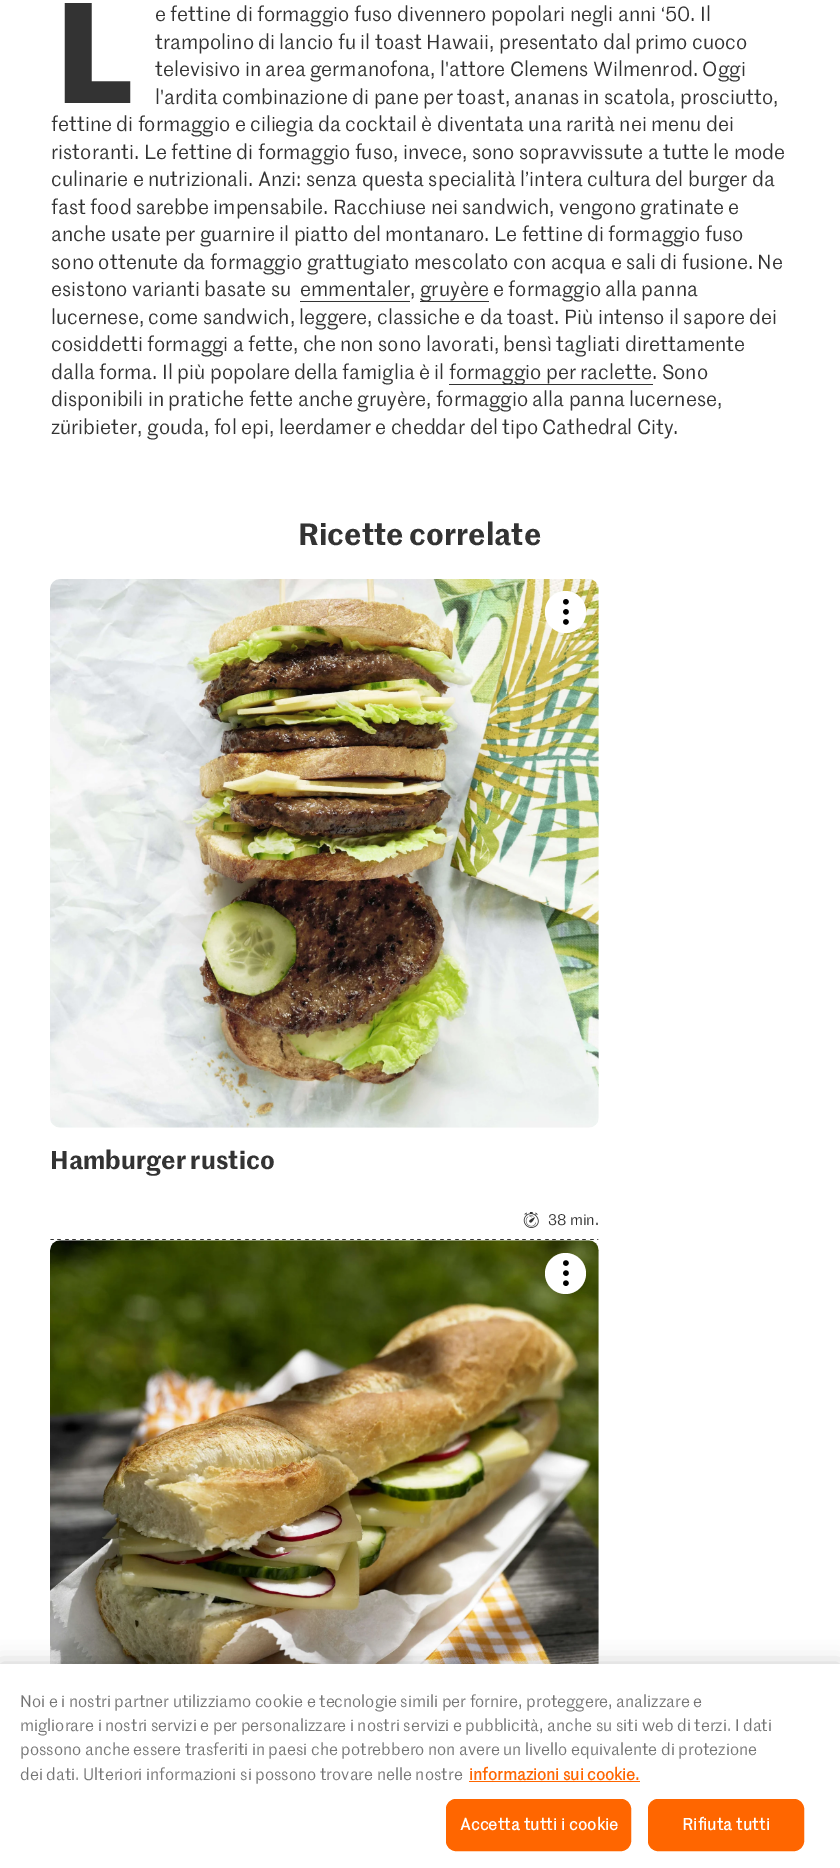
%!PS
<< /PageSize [840 1868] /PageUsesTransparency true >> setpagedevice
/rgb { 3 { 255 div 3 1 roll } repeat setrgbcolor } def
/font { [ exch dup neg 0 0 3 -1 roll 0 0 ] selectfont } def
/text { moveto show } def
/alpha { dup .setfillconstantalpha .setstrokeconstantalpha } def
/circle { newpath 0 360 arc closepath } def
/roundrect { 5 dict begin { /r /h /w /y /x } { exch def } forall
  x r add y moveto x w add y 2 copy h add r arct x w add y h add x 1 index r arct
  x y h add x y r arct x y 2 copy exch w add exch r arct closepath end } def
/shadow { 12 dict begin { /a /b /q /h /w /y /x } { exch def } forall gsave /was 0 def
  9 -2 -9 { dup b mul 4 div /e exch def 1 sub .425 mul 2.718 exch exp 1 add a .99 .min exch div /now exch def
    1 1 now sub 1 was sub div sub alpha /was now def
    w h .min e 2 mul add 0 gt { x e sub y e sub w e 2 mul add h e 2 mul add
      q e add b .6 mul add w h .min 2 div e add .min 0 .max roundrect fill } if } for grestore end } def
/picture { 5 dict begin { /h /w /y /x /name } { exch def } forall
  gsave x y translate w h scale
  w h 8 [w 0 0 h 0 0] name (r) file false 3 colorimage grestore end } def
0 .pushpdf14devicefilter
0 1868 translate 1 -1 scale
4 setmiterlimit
255 255 255 rgb
0 0 840 1868 rectfill
51 51 51 rgb
300 301 110 1 rectfill
420 301 69 1 rectfill
449 384 204 1 rectfill
(img_01.rgb) 50 579 549 549 picture
255 255 255 rgb
545 591 41 42 20.5 roundrect fill
(img_02.rgb) 563 599 6 26 picture
(img_03.rgb) 523 1212 16 16 picture
(img_04.rgb) 50 1239 549 1 picture
(img_05.rgb) 50 1240 549 424 picture
565.5 1273.5 20.5 circle fill
(img_06.rgb) 563 1260 6 26 picture
0 0 0 rgb
0 1664 840 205 0 11 0.2 shadow
255 255 255 rgb
0 1664 840 204 rectfill
255 102 0 rgb
469 1781 171 1 rectfill
446.5 1799.5 184 51 9.5 roundrect gsave fill grestore
stroke
648.5 1799.5 155 51 9.5 roundrect gsave fill grestore
stroke
/NotoSans-Black 140 font
51 51 51 rgb
(L) 54 103 text
/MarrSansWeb-Regular 20 font
(e fettine di formaggio fuso divennero popolari negli anni ‘50. Il) 155 21 text
(trampolino di lancio fu il toast Hawaii, presentato dal primo cuoco) 155 49 text
(televisivo in area germanofona, l'attore Clemens Wilmenrod. Oggi) 155 76 text
(l'ardita combinazione di pane per toast, ananas in scatola, prosciutto,) 155 104 text
(fettine di formaggio e ciliegia da cocktail è diventata una rarità nei menu dei) 51 131 text
(ristoranti. Le fettine di formaggio fuso, invece, sono sopravvissute a tutte le mode) 51 159 text
(culinarie e nutrizionali. Anzi: senza questa specialità l’intera cultura del burger da) 51 186 text
(fast food sarebbe impensabile. Racchiuse nei sandwich, vengono gratinate e) 51 214 text
(anche usate per guarnire il piatto del montanaro. Le fettine di formaggio fuso) 51 241 text
(sono ottenute da formaggio grattugiato mescolato con acqua e sali di fusione. Ne) 51 269 text
(esistono varianti basate su) 51 296 text
(emmentaler,) 300 296 text
(gruyère e formaggio alla panna) 420 296 text
(lucernese, come sandwich, leggere, classiche e da toast. Più intenso il sapore dei) 51 324 text
(cosiddetti formaggi a fette, che non sono lavorati, bensì tagliati direttamente) 51 351 text
(dalla forma. Il più popolare della famiglia è il) 51 379 text
(formaggio per raclette. Sono) 449 379 text
(disponibili in pratiche fette anche gruyère, formaggio alla panna lucernese,) 51 406 text
(züribieter, gouda, fol epi, leerdamer e cheddar del tipo Cathedral City.) 51 434 text
/MarrSansWeb-SemiBold 30 font
(Ricette correlate) 298 545 text
/MarrSansWeb-SemiBold 25 font
(Hamburger rustico) 50 1169 text
/MarrSansWeb-Regular 15 font
(38 min.) 548 1225 text
/MarrSansWeb-Regular 16.25 font
117 117 117 rgb
(Noi e i nostri partner utilizziamo cookie e tecnologie simili per fornire, proteggere, analizzare e) 20 1707 text
(migliorare i nostri servizi e per personalizzare i nostri servizi e pubblicità, anche su siti web di terzi. I dati) 20 1731 text
(possono anche essere trasferiti in paesi che potrebbero non avere un livello equivalente di protezione) 20 1755 text
(dei dati. Ulteriori informazioni si possono trovare nelle nostre) 20 1780 text
/MarrSansWeb-Bold 16.25 font
255 102 0 rgb
(informazioni sui cookie.) 469 1780 text
255 255 255 rgb
460 1830 moveto 0.2 0 (Accetta tutti i cookie) ashow
682 1830 moveto 0.2 0 (Rifiuta tutti) ashow
.poppdf14devicefilter showpage
